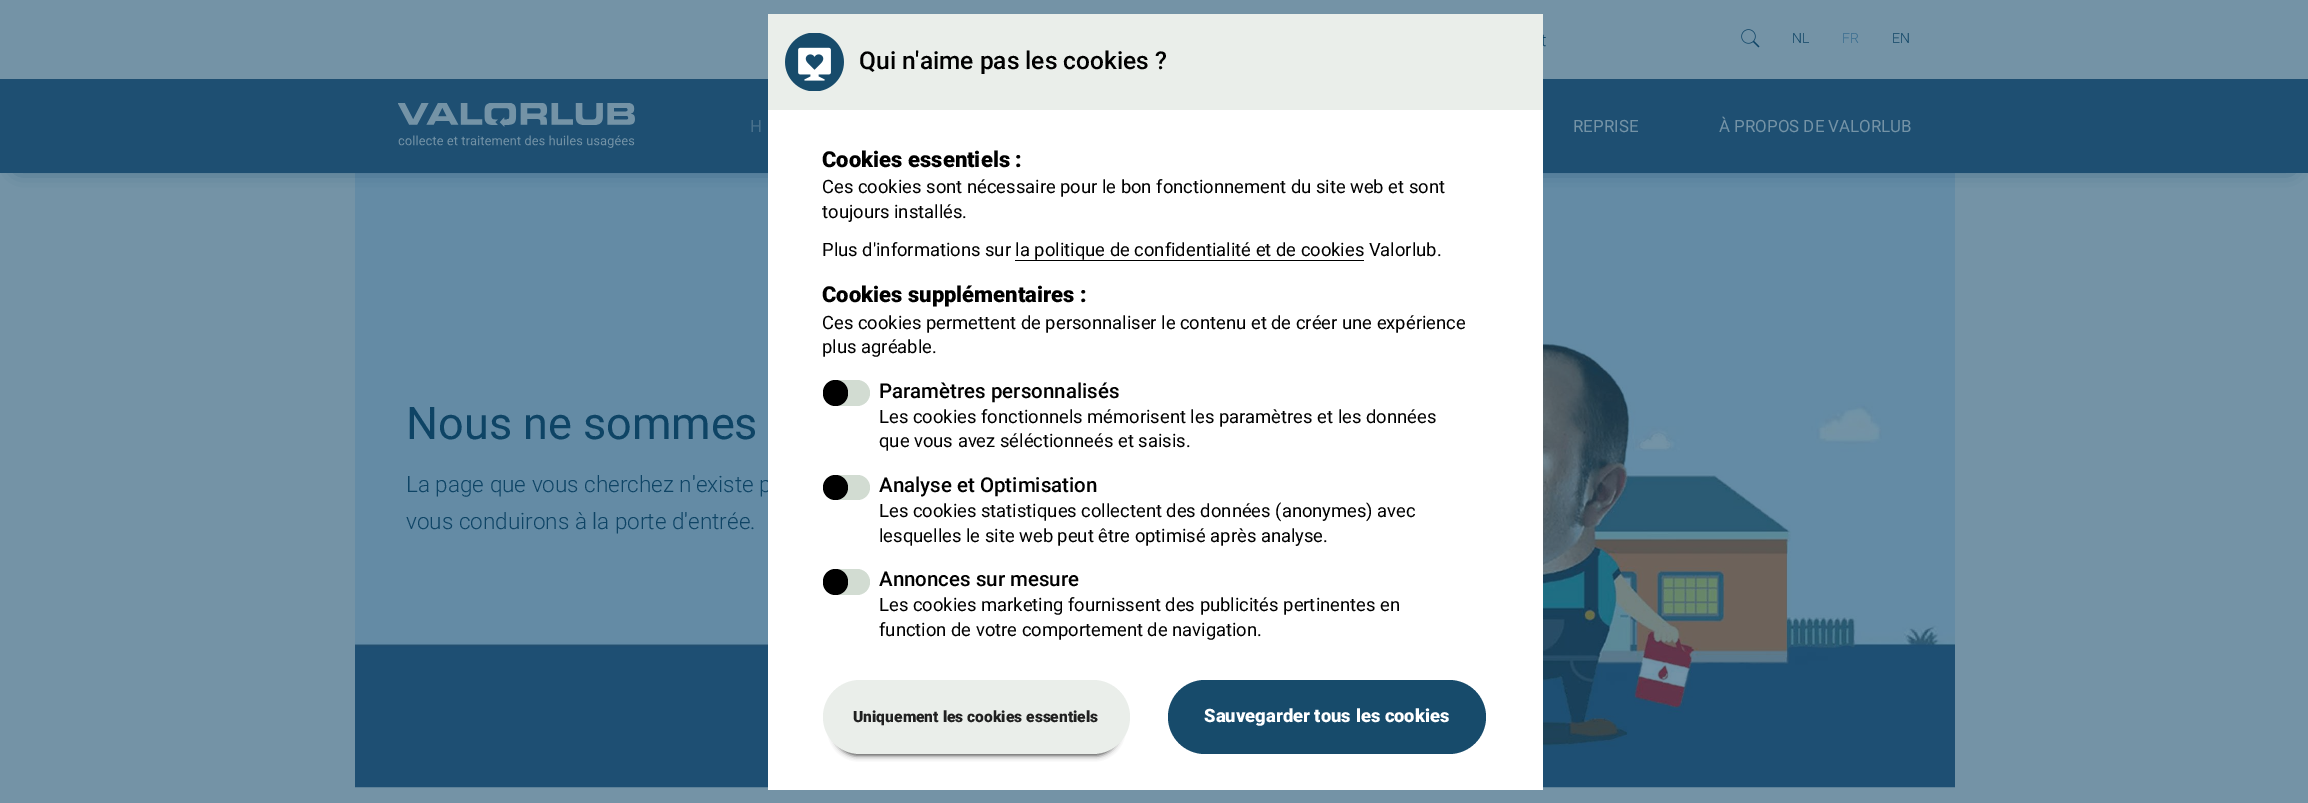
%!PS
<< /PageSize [2308 803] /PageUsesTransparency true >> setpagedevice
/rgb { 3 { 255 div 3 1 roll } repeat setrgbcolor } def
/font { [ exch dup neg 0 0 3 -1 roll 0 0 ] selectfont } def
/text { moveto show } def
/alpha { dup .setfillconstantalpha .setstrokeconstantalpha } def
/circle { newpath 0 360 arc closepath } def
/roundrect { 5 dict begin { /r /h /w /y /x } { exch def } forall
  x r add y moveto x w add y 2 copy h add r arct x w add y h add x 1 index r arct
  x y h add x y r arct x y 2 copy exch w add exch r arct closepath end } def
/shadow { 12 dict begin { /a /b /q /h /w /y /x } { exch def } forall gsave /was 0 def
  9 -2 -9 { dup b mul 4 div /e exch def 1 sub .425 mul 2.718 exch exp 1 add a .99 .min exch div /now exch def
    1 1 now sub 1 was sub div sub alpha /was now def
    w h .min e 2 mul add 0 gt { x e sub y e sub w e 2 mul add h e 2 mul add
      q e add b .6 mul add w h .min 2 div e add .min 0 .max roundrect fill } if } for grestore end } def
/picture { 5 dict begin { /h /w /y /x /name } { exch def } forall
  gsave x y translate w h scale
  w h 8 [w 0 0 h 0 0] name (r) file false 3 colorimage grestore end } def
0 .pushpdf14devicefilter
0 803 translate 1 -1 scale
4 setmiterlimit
116 147 166 rgb
0 0 2308 803 rectfill
(img_01.rgb) 1741 29 19 19 picture
(img_03.rgb) 355 173 1600 615 picture
14 68 101 rgb
19 110 2271 56 0 9.5 1 shadow
30 79 114 rgb
0 79 2308 94 rectfill
(img_02.rgb) 398 103 237 45 picture
/Roboto-Light 16.9 font
14 68 101 rgb
(t) 1541 46 text
/Roboto-Light 14 font
(NL) 1792 43 text
55 108 143 rgb
(FR) 1842 43 text
14 68 101 rgb
(EN) 1892 43 text
/Roboto-Regular 16.9 font
73 113 140 rgb
(H) 750 132 text
116 147 166 rgb
(REPRISE) 1573 132 text
(À PROPOS DE VALORLUB) 1719 132 text
/Roboto-Regular 45 font
14 68 101 rgb
(Nous ne sommes) 406 439 text
/Roboto-Light 22.5 font
(La page que vous cherchez n'existe p) 406 492 text
(vous conduirons à la porte d'entrée.) 406 529 text
255 255 255 rgb
768 110 775 680 rectfill
234 238 234 rgb
768 14 775 96 rectfill
(img_04.rgb) 785 33 59 58 picture
/Roboto-Medium 24.5 font
0 0 0 rgb
(Qui n'aime pas les cookies ?) 859 69 text
/Roboto-Black 22 font
(Cookies essentiels :) 822 167 text
/Roboto-Regular 18.4 font
(Ces cookies sont nécessaire pour le bon fonctionnement du site web et sont) 822 193 text
(toujours installés.) 822 218 text
(Plus d'informations sur la politique de confidentialité et de cookies Valorlub.) 822 256 text
1015 260 349 1 rectfill
/Roboto-Black 22 font
(Cookies supplémentaires :) 822 302 text
/Roboto-Regular 18.4 font
(Ces cookies permettent de personnaliser le contenu et de créer une expérience) 822 329 text
(plus agréable.) 822 353 text
210 220 210 rgb
823 380 47 26 13 roundrect fill
0 0 0 rgb
823 380 25 26 12.5 roundrect fill
/Roboto-Medium 20.5 font
(Paramètres personnalisés) 879 398 text
/Roboto-Regular 18.4 font
(Les cookies fonctionnels mémorisent les paramètres et les données) 879 423 text
(que vous avez séléctionneés et saisis.) 879 447 text
210 220 210 rgb
823 475 47 25 12.5 roundrect fill
0 0 0 rgb
835.5 487.5 12.5 circle fill
/Roboto-Medium 20.5 font
(Analyse et Optimisation) 879 492 text
/Roboto-Regular 18.4 font
(Les cookies statistiques collectent des données \(anonymes\) avec) 879 517 text
(lesquelles le site web peut être optimisé après analyse.) 879 542 text
210 220 210 rgb
823 569 47 26 13 roundrect fill
0 0 0 rgb
823 569 25 26 12.5 roundrect fill
/Roboto-Medium 20.5 font
(Annonces sur mesure) 879 586 text
/Roboto-Regular 18.4 font
(Les cookies marketing fournissent des publicités pertinentes en) 879 611 text
(function de votre comportement de navigation.) 879 636 text
32 32 32 rgb
834 704 285 51 25.5 3 1 shadow
234 238 234 rgb
823 680 307 74 37 roundrect fill
/Roboto-Black 15.6 font
32 32 32 rgb
(Uniquement les cookies essentiels) 853 722 text
23 75 107 rgb
1168 680 318 74 37 roundrect fill
/Roboto-Black 18.4 font
255 255 255 rgb
(Sauvegarder tous les cookies) 1204 722 text
.poppdf14devicefilter showpage
